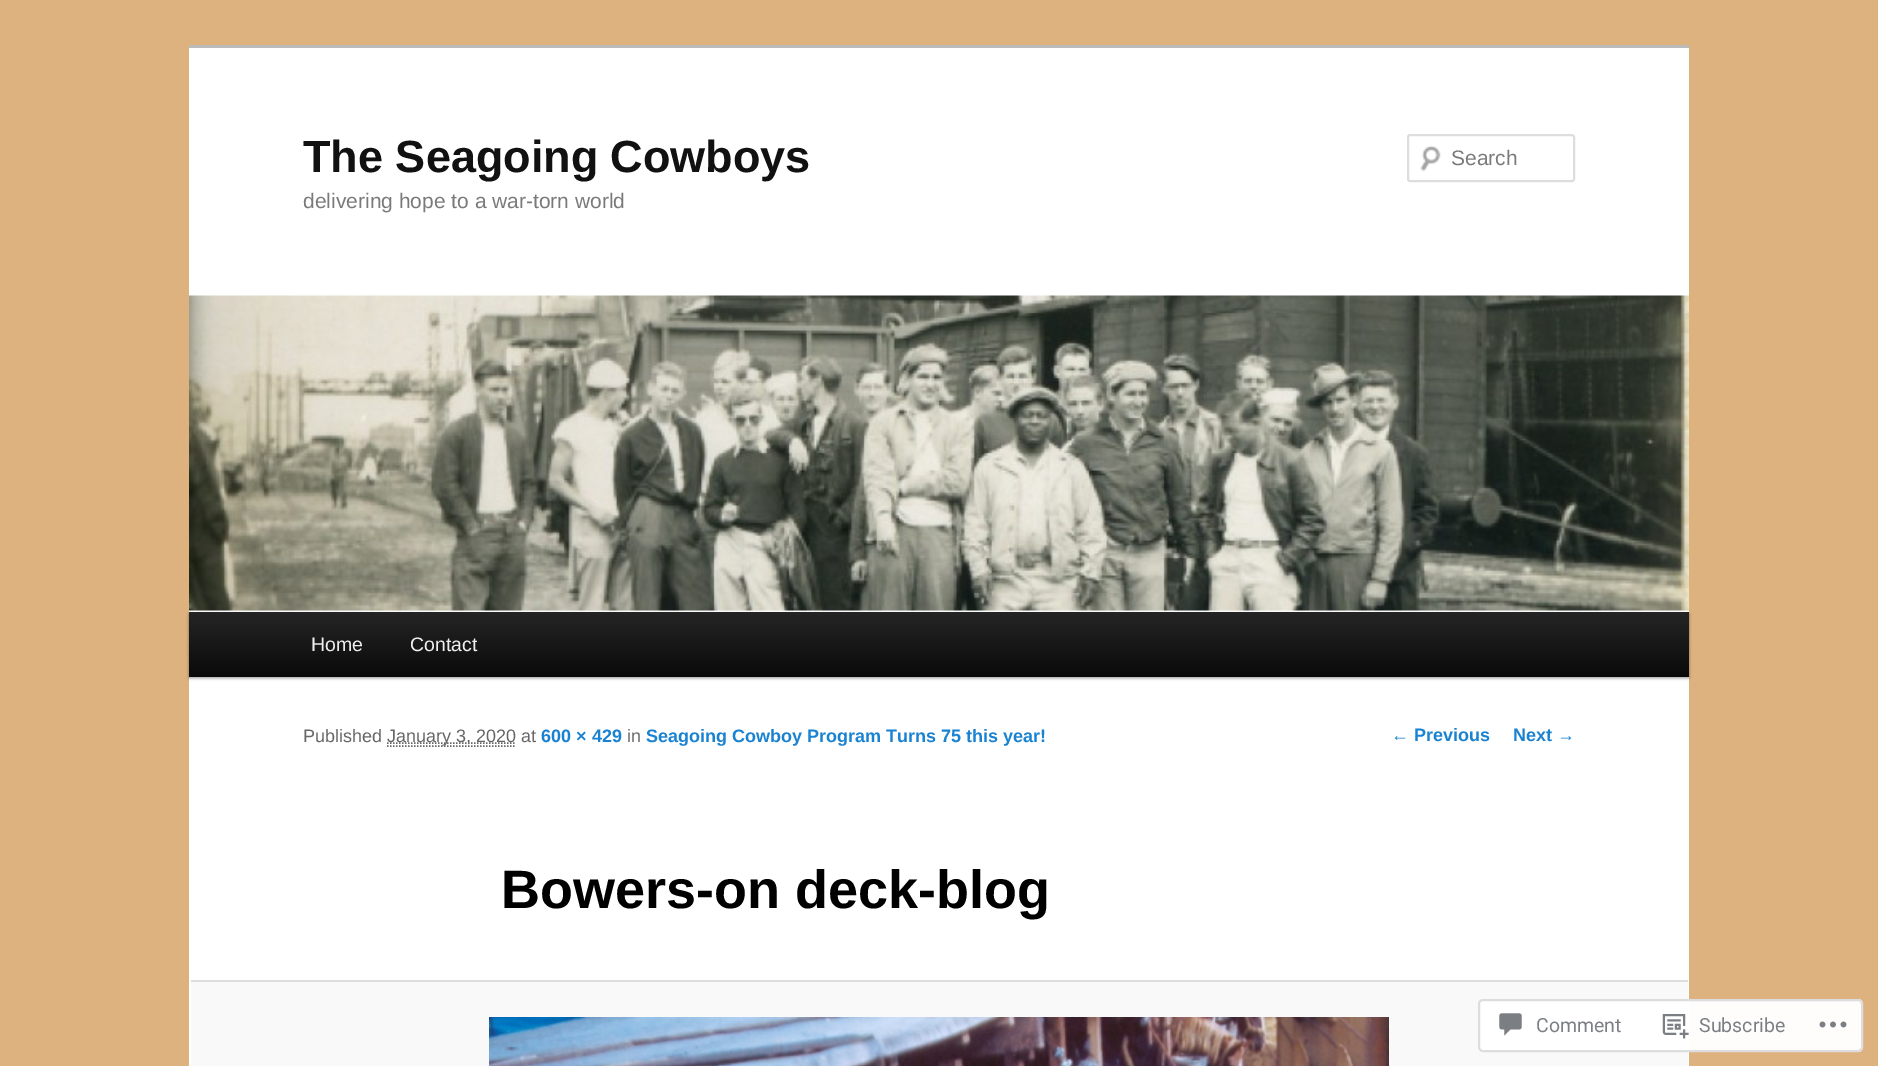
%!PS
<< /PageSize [1878 1066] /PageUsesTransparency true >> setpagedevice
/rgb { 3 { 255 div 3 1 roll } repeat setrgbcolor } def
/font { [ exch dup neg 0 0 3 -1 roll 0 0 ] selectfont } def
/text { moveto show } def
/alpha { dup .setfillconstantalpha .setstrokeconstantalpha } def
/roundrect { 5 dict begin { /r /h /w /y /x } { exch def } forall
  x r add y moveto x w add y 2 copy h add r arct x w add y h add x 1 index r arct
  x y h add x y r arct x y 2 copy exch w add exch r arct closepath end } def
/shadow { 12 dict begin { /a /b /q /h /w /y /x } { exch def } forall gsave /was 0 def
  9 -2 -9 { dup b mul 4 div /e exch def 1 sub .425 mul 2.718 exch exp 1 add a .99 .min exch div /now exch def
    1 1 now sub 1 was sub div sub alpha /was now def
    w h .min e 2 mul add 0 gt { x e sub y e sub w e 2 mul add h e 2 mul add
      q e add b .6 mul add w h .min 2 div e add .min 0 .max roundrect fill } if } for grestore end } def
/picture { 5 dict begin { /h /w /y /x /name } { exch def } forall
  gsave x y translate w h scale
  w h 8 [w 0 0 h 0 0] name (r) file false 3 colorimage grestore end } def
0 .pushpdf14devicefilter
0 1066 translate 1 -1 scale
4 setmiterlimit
221 178 126 rgb
0 0 1878 1066 rectfill
255 255 255 rgb
189 48 1500 1018 rectfill
187 187 187 rgb
189 45 1500 3 rectfill
(img_01.rgb) 1420 145 21 27 picture
221 221 221 rgb
2 setlinewidth
1408 135 166 46 2 roundrect stroke
0 0 0 rgb
189 614 1500 64 0 1.5 0.4 shadow
(img_02.rgb) 189 295 1500 316 picture
gsave 189 612 moveto 1500 0 rlineto 0 65 rlineto -1500 0 rlineto closepath clip newpath
<< /ShadingType 2 /ColorSpace /DeviceRGB /Coords [939 612 939 677] /Extend [true true] /Function << /FunctionType 2 /Domain [0 1] /C0 [0.145 0.145 0.145] /C1 [0.039 0.039 0.039] /N 1 >> >> shfill grestore
102 102 102 rgb
1.5 setlinewidth
[1.5 1.5] 0 setdash
387 746 moveto 129 0 rlineto stroke
387 743 moveto 129 0 rlineto stroke
249 249 249 rgb
191 982 1497 84 rectfill
221 221 221 rgb
191 980 1497 2 rectfill
(img_03.rgb) 489 1017 900 49 picture
0.98 alpha
255 255 255 rgb
1478 999 385 53 5 roundrect fill
220 220 222 rgb
2 setlinewidth
[] 0 setdash
1479 1000 383 51 4 roundrect stroke
1 alpha
(img_04.rgb) 1499 1013 23 23 picture
(img_05.rgb) 1662 1014 27 25 picture
(img_06.rgb) 1819 1021 28 7 picture
/LiberationSans-Bold 45 font
17 17 17 rgb
(The Seagoing Cowboys) 303 172 text
/LiberationSans-Regular 21 font
122 122 122 rgb
(delivering hope to a war-torn world) 303 208 text
(Search) 1451 165 text
/LiberationSans-Regular 19.5 font
238 238 238 rgb
(Home) 311 651 text
(Contact) 410 651 text
/LiberationSans-Regular 18 font
102 102 102 rgb
(Published) 303 742 text
(January 3, 2020 at) 387 742 text
/LiberationSans-Bold 18 font
25 130 209 rgb
(600 × 429) 541 742 text
/LiberationSans-Regular 18 font
102 102 102 rgb
(in) 627 742 text
/LiberationSans-Bold 18 font
25 130 209 rgb
(Seagoing Cowboy Program Turns 75 this year!) 646 742 text
/LiberationSans-Bold 54 font
0 0 0 rgb
(Bowers-on deck-blog) 501 908 text
/LiberationSans-Bold 18 font
25 130 209 rgb
(← Previous) 1391 741 text
(Next →) 1513 741 text
/Roboto-Regular 19.5 font
123 127 132 rgb
(Comment) 1536 1032 text
(Subscribe) 1699 1032 text
.poppdf14devicefilter showpage
